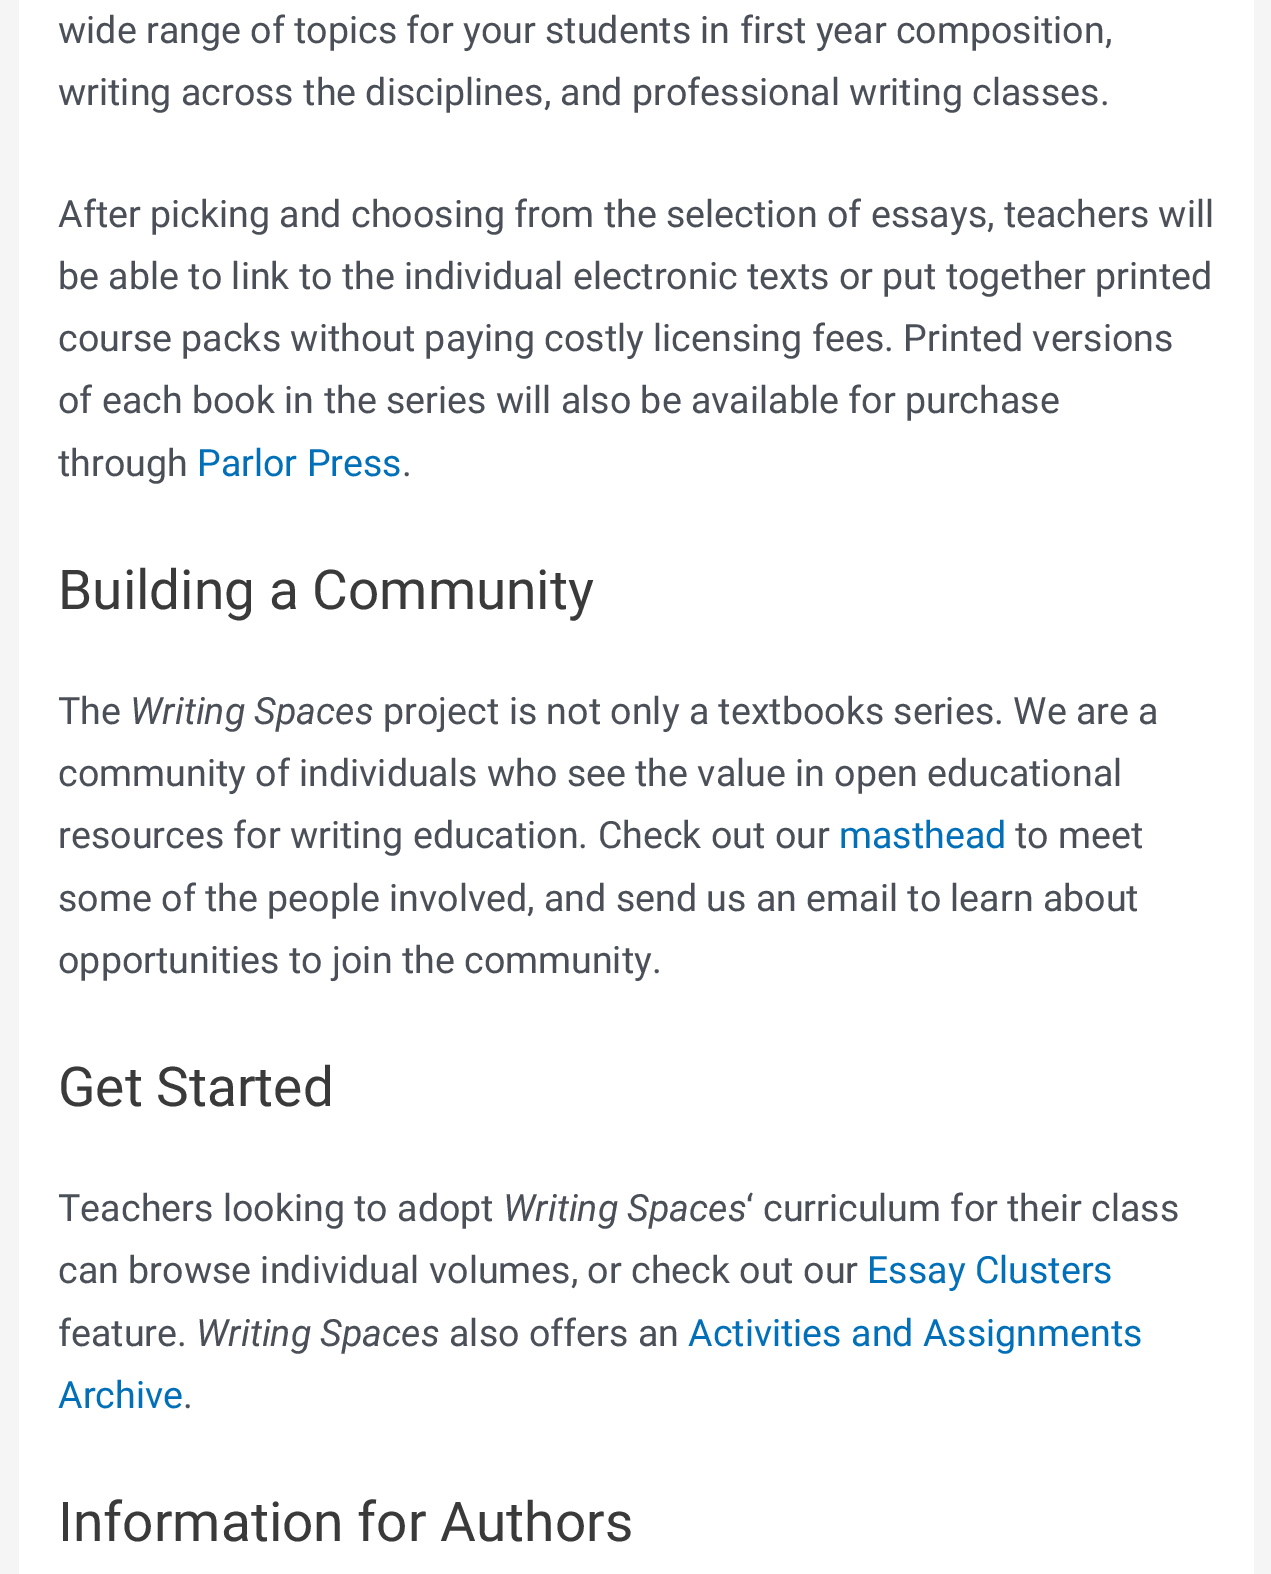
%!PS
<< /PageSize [1271 1574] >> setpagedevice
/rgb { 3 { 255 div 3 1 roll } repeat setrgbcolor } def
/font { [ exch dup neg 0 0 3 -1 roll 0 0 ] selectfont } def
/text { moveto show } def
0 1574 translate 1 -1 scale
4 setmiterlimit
245 245 245 rgb
0 0 1271 1574 rectfill
255 255 255 rgb
19 0 1235 1574 rectfill
/Roboto-Regular 37.6 font
75 79 88 rgb
(wide range of topics for your students in first year composition,) 58 43 text
(writing across the disciplines, and professional writing classes.) 58 105 text
(After picking and choosing from the selection of essays, teachers will) 58 227 text
(be able to link to the individual electronic texts or put together printed) 58 289 text
(course packs without paying costly licensing fees. Printed versions) 58 351 text
(of each book in the series will also be available for purchase) 58 413 text
(through) 58 476 text
1 112 185 rgb
(Parlor Press) 197 476 text
75 79 88 rgb
(.) 402 476 text
/Roboto-Regular 55 font
58 58 58 rgb
(Building a Community) 58 609 text
/Roboto-Regular 37.6 font
75 79 88 rgb
(The) 58 724 text
/Roboto-Italic 37.6 font
(Writing Spaces) 130 724 text
/Roboto-Regular 37.6 font
(project is not only a textbooks series. We are a) 383 724 text
(community of individuals who see the value in open educational) 58 786 text
(resources for writing education. Check out our) 58 848 text
1 112 185 rgb
(masthead) 839 848 text
75 79 88 rgb
(to meet) 1015 848 text
(some of the people involved, and send us an email to learn about) 58 911 text
(opportunities to join the community.) 58 973 text
/Roboto-Regular 55 font
58 58 58 rgb
(Get Started) 58 1106 text
/Roboto-Regular 37.6 font
75 79 88 rgb
(Teachers looking to adopt) 58 1221 text
/Roboto-Italic 37.6 font
(Writing Spaces) 503 1221 text
/Roboto-Regular 37.6 font
(‘ curriculum for their class) 746 1221 text
(can browse individual volumes, or check out our) 58 1283 text
1 112 185 rgb
(Essay Clusters) 867 1283 text
75 79 88 rgb
(feature.) 58 1346 text
/Roboto-Italic 37.6 font
(Writing Spaces) 196 1346 text
/Roboto-Regular 37.6 font
(also offers an) 449 1346 text
1 112 185 rgb
(Activities and Assignments) 688 1346 text
(Archive) 58 1408 text
75 79 88 rgb
(.) 183 1408 text
/Roboto-Regular 55 font
58 58 58 rgb
(Information for Authors) 58 1541 text
showpage
